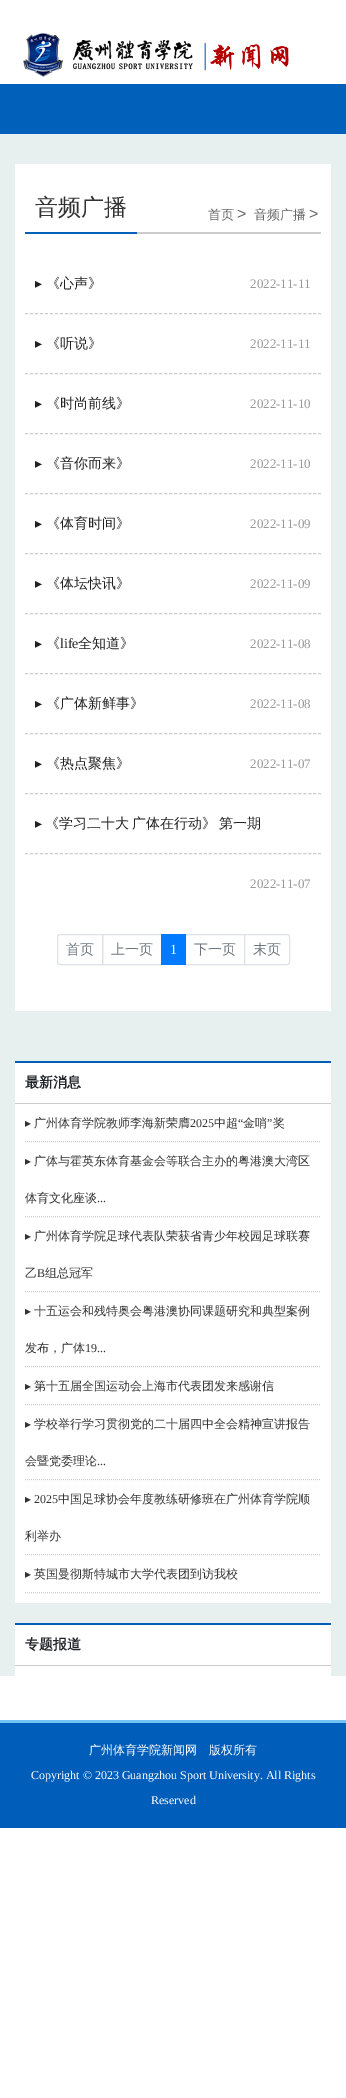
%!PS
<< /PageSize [346 2098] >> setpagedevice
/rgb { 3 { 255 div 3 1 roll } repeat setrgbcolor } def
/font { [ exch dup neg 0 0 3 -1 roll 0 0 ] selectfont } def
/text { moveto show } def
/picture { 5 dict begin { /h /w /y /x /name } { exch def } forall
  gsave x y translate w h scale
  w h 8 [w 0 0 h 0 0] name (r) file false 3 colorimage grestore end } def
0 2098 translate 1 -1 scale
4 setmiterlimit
255 255 255 rgb
0 0 346 2098 rectfill
(img_01.rgb) 23 33 266 44 picture
0 96 186 rgb
0 84 346 50 rectfill
232 239 239 rgb
0 134 346 1542 rectfill
255 255 255 rgb
15 164 316 847 rectfill
204 204 204 rgb
137 232 184 2 rectfill
0 96 186 rgb
25 232 112 2 rectfill
204 204 204 rgb
[3 1.97] 0 setdash
25 313.5 moveto 296 0 rlineto stroke
25 373.5 moveto 296 0 rlineto stroke
25 433.5 moveto 296 0 rlineto stroke
25 493.5 moveto 296 0 rlineto stroke
25 553.5 moveto 296 0 rlineto stroke
25 613.5 moveto 296 0 rlineto stroke
25 673.5 moveto 296 0 rlineto stroke
25 733.5 moveto 296 0 rlineto stroke
25 793.5 moveto 296 0 rlineto stroke
25 853.5 moveto 296 0 rlineto stroke
222 226 230 rgb
[] 0 setdash
60 934.5 moveto 42.5 0 rlineto 0 30 rlineto -42.5 0 rlineto -1.5 0 -2.5 -1 -2.5 -2.5 rcurveto 0 -25 rlineto 0 -1.5 1 -2.5 2.5 -2.5 rcurveto closepath stroke
102.5 934.5 59 30 rectstroke
185.5 934.5 59 30 rectstroke
0 123 255 rgb
161 934 25 31 rectfill
255 255 255 rgb
244.5 934.5 moveto 42.5 0 rlineto 1.5 0 2.5 1 2.5 2.5 rcurveto 0 25 rlineto 0 1.5 -1 2.5 -2.5 2.5 rcurveto -42.5 0 rlineto closepath gsave fill grestore
222 226 230 rgb
stroke
255 255 255 rgb
15 1063 316 540 rectfill
0 94 184 rgb
15 1061 316 2 rectfill
204 204 204 rgb
15 1103 316 1 rectfill
[1 1] 0 setdash
25 1141.5 moveto 296 0 rlineto stroke
25 1216.5 moveto 296 0 rlineto stroke
25 1291.5 moveto 296 0 rlineto stroke
25 1366.5 moveto 296 0 rlineto stroke
25 1404.5 moveto 296 0 rlineto stroke
25 1479.5 moveto 296 0 rlineto stroke
25 1554.5 moveto 296 0 rlineto stroke
25 1592.5 moveto 296 0 rlineto stroke
255 255 255 rgb
15 1625 316 51 rectfill
0 94 184 rgb
15 1623 316 2 rectfill
204 204 204 rgb
15 1665 316 1 rectfill
0 94 186 rgb
0 1723 346 105 rectfill
116 194 243 rgb
0 1720 346 3 rectfill
/WenQuanYiZenHei-Medium 23 font
51 51 51 rgb
(音频广播) 35 215 text
/WenQuanYiZenHei-Medium 13 font
102 102 102 rgb
(首页) 208 219 text
/LiberationSans-Regular 16 font
(>) 237 219 text
/WenQuanYiZenHei-Medium 13 font
(音频广播) 254 219 text
/LiberationSans-Regular 16 font
(>) 309 219 text
/DejaVuSans-Regular 14 font
34 34 34 rgb
(▸) 35 288 text
/WenQuanYiZenHei-Medium 14 font
(《心声》) 46 288 text
/LiberationSerif-Regular 13 font
153 153 153 rgb
(2022-11-11) 250 288 text
/DejaVuSans-Regular 14 font
34 34 34 rgb
(▸) 35 348 text
/WenQuanYiZenHei-Medium 14 font
(《听说》) 46 348 text
/LiberationSerif-Regular 13 font
153 153 153 rgb
(2022-11-11) 250 348 text
/DejaVuSans-Regular 14 font
34 34 34 rgb
(▸) 35 408 text
/WenQuanYiZenHei-Medium 14 font
(《时尚前线》) 46 408 text
/LiberationSerif-Regular 13 font
153 153 153 rgb
(2022-11-10) 250 408 text
/DejaVuSans-Regular 14 font
34 34 34 rgb
(▸) 35 468 text
/WenQuanYiZenHei-Medium 14 font
(《音你而来》) 46 468 text
/LiberationSerif-Regular 13 font
153 153 153 rgb
(2022-11-10) 250 468 text
/DejaVuSans-Regular 14 font
34 34 34 rgb
(▸) 35 528 text
/WenQuanYiZenHei-Medium 14 font
(《体育时间》) 46 528 text
/LiberationSerif-Regular 13 font
153 153 153 rgb
(2022-11-09) 250 528 text
/DejaVuSans-Regular 14 font
34 34 34 rgb
(▸) 35 588 text
/WenQuanYiZenHei-Medium 14 font
(《体坛快讯》) 46 588 text
/LiberationSerif-Regular 13 font
153 153 153 rgb
(2022-11-09) 250 588 text
/DejaVuSans-Regular 14 font
34 34 34 rgb
(▸) 35 648 text
/WenQuanYiZenHei-Medium 14 font
(《) 46 648 text
/LiberationSerif-Regular 14 font
(life) 60 648 text
/WenQuanYiZenHei-Medium 14 font
(全知道》) 78 648 text
/LiberationSerif-Regular 13 font
153 153 153 rgb
(2022-11-08) 250 648 text
/DejaVuSans-Regular 14 font
34 34 34 rgb
(▸) 35 708 text
/WenQuanYiZenHei-Medium 14 font
(《广体新鲜事》) 46 708 text
/LiberationSerif-Regular 13 font
153 153 153 rgb
(2022-11-08) 250 708 text
/DejaVuSans-Regular 14 font
34 34 34 rgb
(▸) 35 768 text
/WenQuanYiZenHei-Medium 14 font
(《热点聚焦》) 46 768 text
/LiberationSerif-Regular 13 font
153 153 153 rgb
(2022-11-07) 250 768 text
/DejaVuSans-Regular 14 font
34 34 34 rgb
(▸) 35 828 text
/WenQuanYiZenHei-Medium 14 font
45 828 moveto -1 0 32 (《学习二十大 广体在行动》 第一期) widthshow
/LiberationSerif-Regular 13 font
153 153 153 rgb
(2022-11-07) 250 888 text
/WenQuanYiZenHei-Medium 14 font
108 117 125 rgb
(首页) 66 954 text
(上一页) 111 954 text
/LiberationSerif-Regular 14 font
255 255 255 rgb
(1) 170 954 text
/WenQuanYiZenHei-Medium 14 font
108 117 125 rgb
(下一页) 194 954 text
(末页) 253 954 text
/WenQuanYiZenHei-Bold 14 font
33 37 41 rgb
(最新消息) 25 1087 text
/DejaVuSans-Regular 12 font
51 51 51 rgb
(▸) 25 1127 text
/WenQuanYiZenHei-Medium 12 font
(广州体育学院教师李海新荣膺) 34 1127 text
/LiberationSerif-Regular 12 font
(2025) 190 1127 text
/WenQuanYiZenHei-Medium 12 font
(中超) 214 1127 text
/LiberationSerif-Regular 12 font
(“) 238 1127 text
/WenQuanYiZenHei-Medium 12 font
(金哨) 243 1127 text
/LiberationSerif-Regular 12 font
(”) 267 1127 text
/WenQuanYiZenHei-Medium 12 font
(奖) 273 1127 text
/DejaVuSans-Regular 12 font
(▸) 25 1165 text
/WenQuanYiZenHei-Medium 12 font
(广体与霍英东体育基金会等联合主办的粤港澳大湾区) 34 1165 text
(体育文化座谈) 25 1202 text
/LiberationSerif-Regular 12 font
(...) 97 1202 text
/DejaVuSans-Regular 12 font
(▸) 25 1240 text
/WenQuanYiZenHei-Medium 12 font
(广州体育学院足球代表队荣获省青少年校园足球联赛) 34 1240 text
(乙) 25 1277 text
/LiberationSerif-Regular 12 font
(B) 37 1277 text
/WenQuanYiZenHei-Medium 12 font
(组总冠军) 45 1277 text
/DejaVuSans-Regular 12 font
(▸) 25 1315 text
/WenQuanYiZenHei-Medium 12 font
(十五运会和残特奥会粤港澳协同课题研究和典型案例) 34 1315 text
(发布，广体) 25 1352 text
/LiberationSerif-Regular 12 font
(19...) 85 1352 text
/DejaVuSans-Regular 12 font
(▸) 25 1390 text
/WenQuanYiZenHei-Medium 12 font
(第十五届全国运动会上海市代表团发来感谢信) 34 1390 text
/DejaVuSans-Regular 12 font
(▸) 25 1428 text
/WenQuanYiZenHei-Medium 12 font
(学校举行学习贯彻党的二十届四中全会精神宣讲报告) 34 1428 text
(会暨党委理论) 25 1465 text
/LiberationSerif-Regular 12 font
(...) 97 1465 text
/DejaVuSans-Regular 12 font
(▸) 25 1503 text
/LiberationSerif-Regular 12 font
(2025) 34 1503 text
/WenQuanYiZenHei-Medium 12 font
(中国足球协会年度教练研修班在广州体育学院顺) 58 1503 text
(利举办) 25 1540 text
/DejaVuSans-Regular 12 font
(▸) 25 1578 text
/WenQuanYiZenHei-Medium 12 font
(英国曼彻斯特城市大学代表团到访我校) 34 1578 text
/WenQuanYiZenHei-Bold 14 font
33 37 41 rgb
(专题报道) 25 1649 text
/WenQuanYiZenHei-Medium 12 font
255 255 255 rgb
(广州体育学院新闻网) 89 1754 text
(版权所有) 209 1754 text
/LiberationSerif-Regular 12 font
(Copyright © 2023 Guangzhou Sport University. All Rights) 31 1779 text
(Reserved) 151 1804 text
showpage
